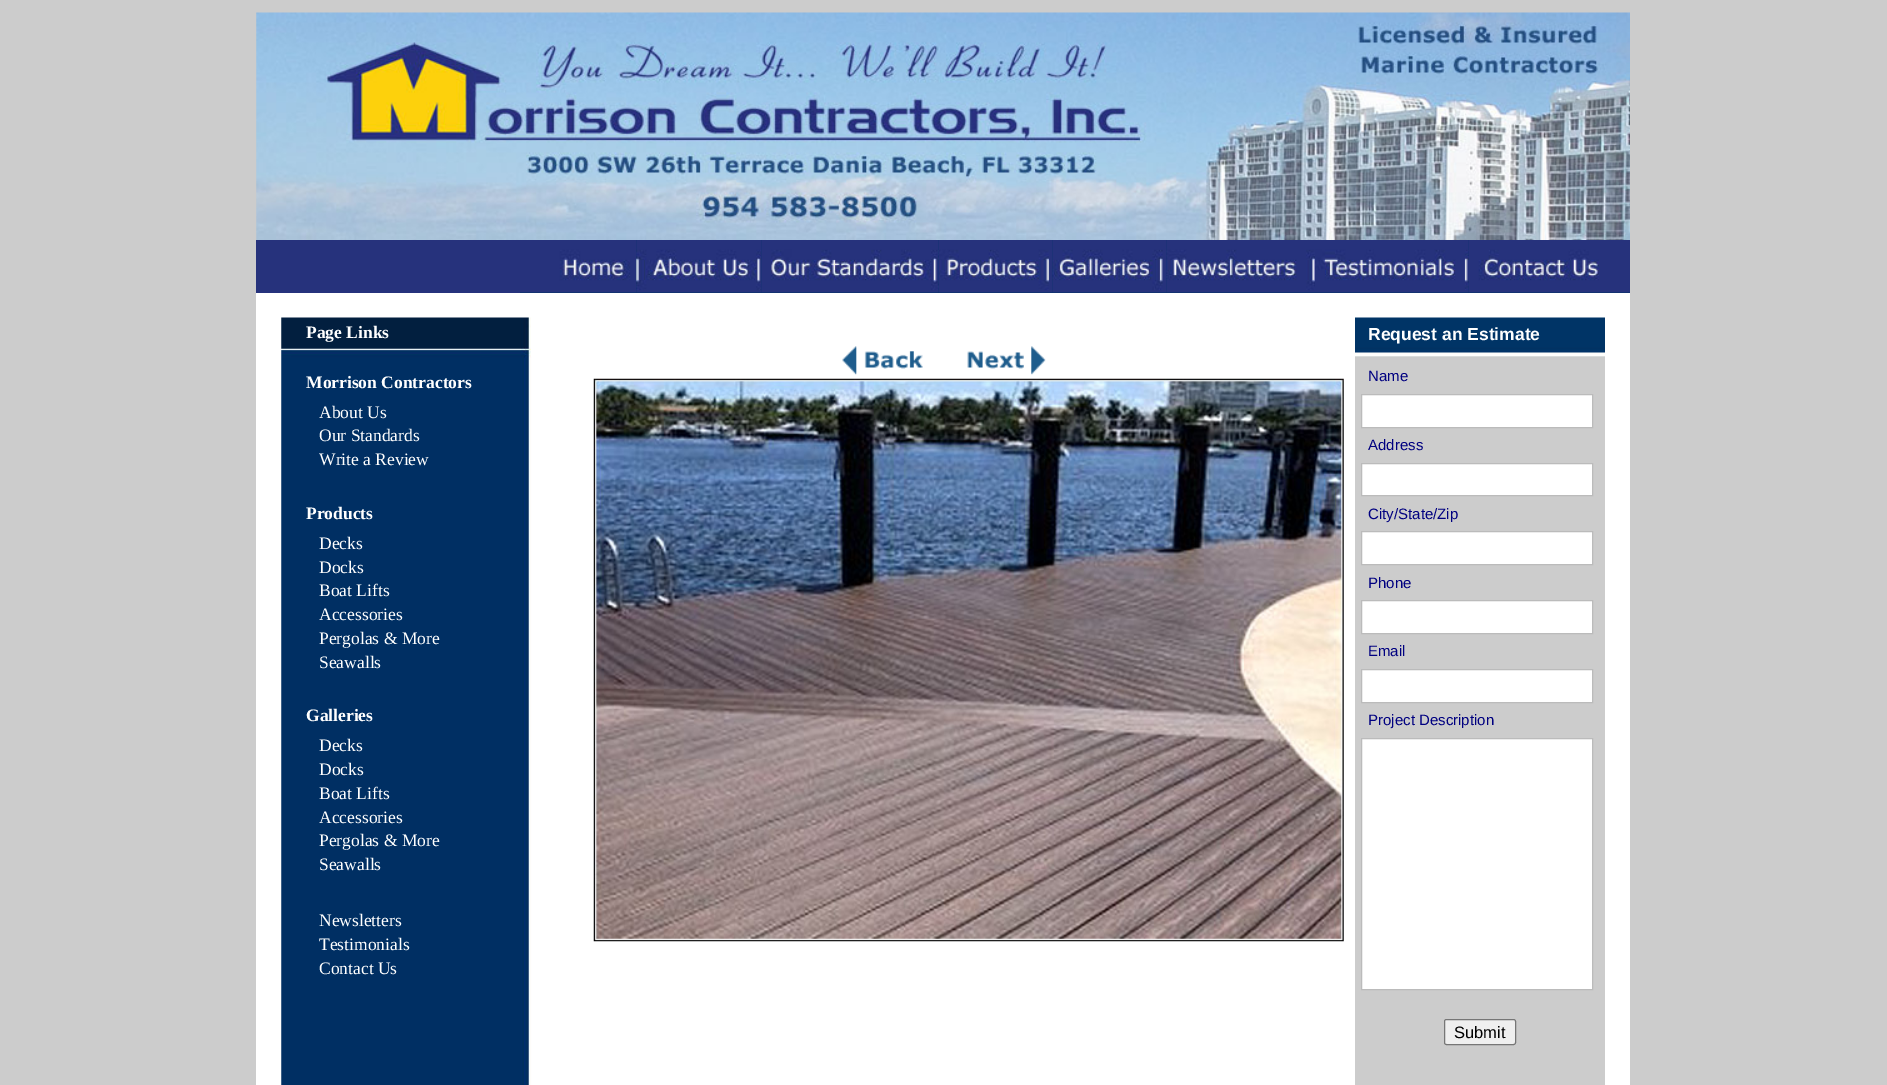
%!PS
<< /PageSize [1887 1085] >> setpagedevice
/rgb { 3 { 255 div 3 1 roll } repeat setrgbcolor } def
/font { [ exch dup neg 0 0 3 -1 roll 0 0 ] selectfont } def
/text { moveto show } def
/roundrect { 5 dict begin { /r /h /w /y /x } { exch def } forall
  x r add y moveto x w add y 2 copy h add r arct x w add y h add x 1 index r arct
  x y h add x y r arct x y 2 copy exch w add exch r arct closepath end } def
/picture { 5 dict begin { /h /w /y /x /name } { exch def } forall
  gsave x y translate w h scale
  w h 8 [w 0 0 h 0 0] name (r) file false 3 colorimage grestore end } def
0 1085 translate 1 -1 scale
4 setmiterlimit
204 204 204 rgb
0 0 1887 1085 rectfill
(img_01.rgb) 256 12 1374 228 picture
0 51 102 rgb
520 240 1110 53 rectfill
38 50 124 rgb
256 240 264 53 rectfill
(img_02.rgb) 520 240 117 53 picture
(img_03.rgb) 636 240 126 53 picture
(img_04.rgb) 761 240 178 53 picture
(img_05.rgb) 939 240 114 53 picture
(img_06.rgb) 1052 240 115 53 picture
(img_07.rgb) 1166 240 149 53 picture
(img_08.rgb) 1315 240 154 53 picture
(img_09.rgb) 1468 240 162 53 picture
255 255 255 rgb
256 293 1374 792 rectfill
(img_10.rgb) 281 317 251 768 picture
531 318 1 39 rectfill
(img_11.rgb) 842 346 81 29 picture
(img_12.rgb) 967 346 79 29 picture
(img_13.rgb) 593 378 751 564 picture
(img_14.rgb) 1355 317 250 768 picture
1361.5 394.5 moveto 231 0 rlineto 0 33 rlineto -231 0 rlineto closepath gsave fill grestore
187 187 187 rgb
stroke
255 255 255 rgb
1361.5 463.5 moveto 231 0 rlineto 0 32 rlineto -231 0 rlineto closepath gsave fill grestore
187 187 187 rgb
stroke
255 255 255 rgb
1361.5 531.5 moveto 231 0 rlineto 0 33 rlineto -231 0 rlineto closepath gsave fill grestore
187 187 187 rgb
stroke
255 255 255 rgb
1361.5 600.5 moveto 231 0 rlineto 0 33 rlineto -231 0 rlineto closepath gsave fill grestore
187 187 187 rgb
stroke
255 255 255 rgb
1361.5 669.5 moveto 231 0 rlineto 0 33 rlineto -231 0 rlineto closepath gsave fill grestore
187 187 187 rgb
stroke
255 255 255 rgb
1361.5 738.5 moveto 231 0 rlineto 0 251 rlineto -231 0 rlineto closepath gsave fill grestore
187 187 187 rgb
stroke
239 239 239 rgb
1444.5 1019.5 71 25 2 roundrect gsave fill grestore
118 118 118 rgb
stroke
/LiberationSerif-Bold 17.5 font
255 255 255 rgb
(Page Links) 306 338 text
(Morrison Contractors) 306 388 text
/LiberationSerif-Regular 17.5 font
(About Us) 319 418 text
(Our Standards) 319 441 text
(Write a Review) 319 465 text
/LiberationSerif-Bold 17.5 font
(Products) 306 519 text
/LiberationSerif-Regular 17.5 font
(Decks) 319 549 text
(Docks) 319 573 text
(Boat Lifts) 319 596 text
(Accessories) 319 620 text
(Pergolas & More) 319 644 text
(Seawalls) 319 668 text
/LiberationSerif-Bold 17.5 font
(Galleries) 306 721 text
/LiberationSerif-Regular 17.5 font
(Decks) 319 751 text
(Docks) 319 775 text
(Boat Lifts) 319 799 text
(Accessories) 319 823 text
(Pergolas & More) 319 846 text
(Seawalls) 319 870 text
(Newsletters) 319 926 text
(Testimonials) 319 950 text
(Contact Us) 319 974 text
/LiberationSans-Bold 17.5 font
(Request an Estimate) 1368 340 text
/LiberationSans-Regular 15 font
0 0 128 rgb
(Name) 1368 381 text
(Address) 1368 450 text
(City/State/Zip) 1368 519 text
(Phone) 1368 588 text
(Email) 1368 656 text
(Project Description) 1368 725 text
/LiberationSans-Regular 16.5 font
0 0 0 rgb
(Submit) 1454 1038 text
showpage
